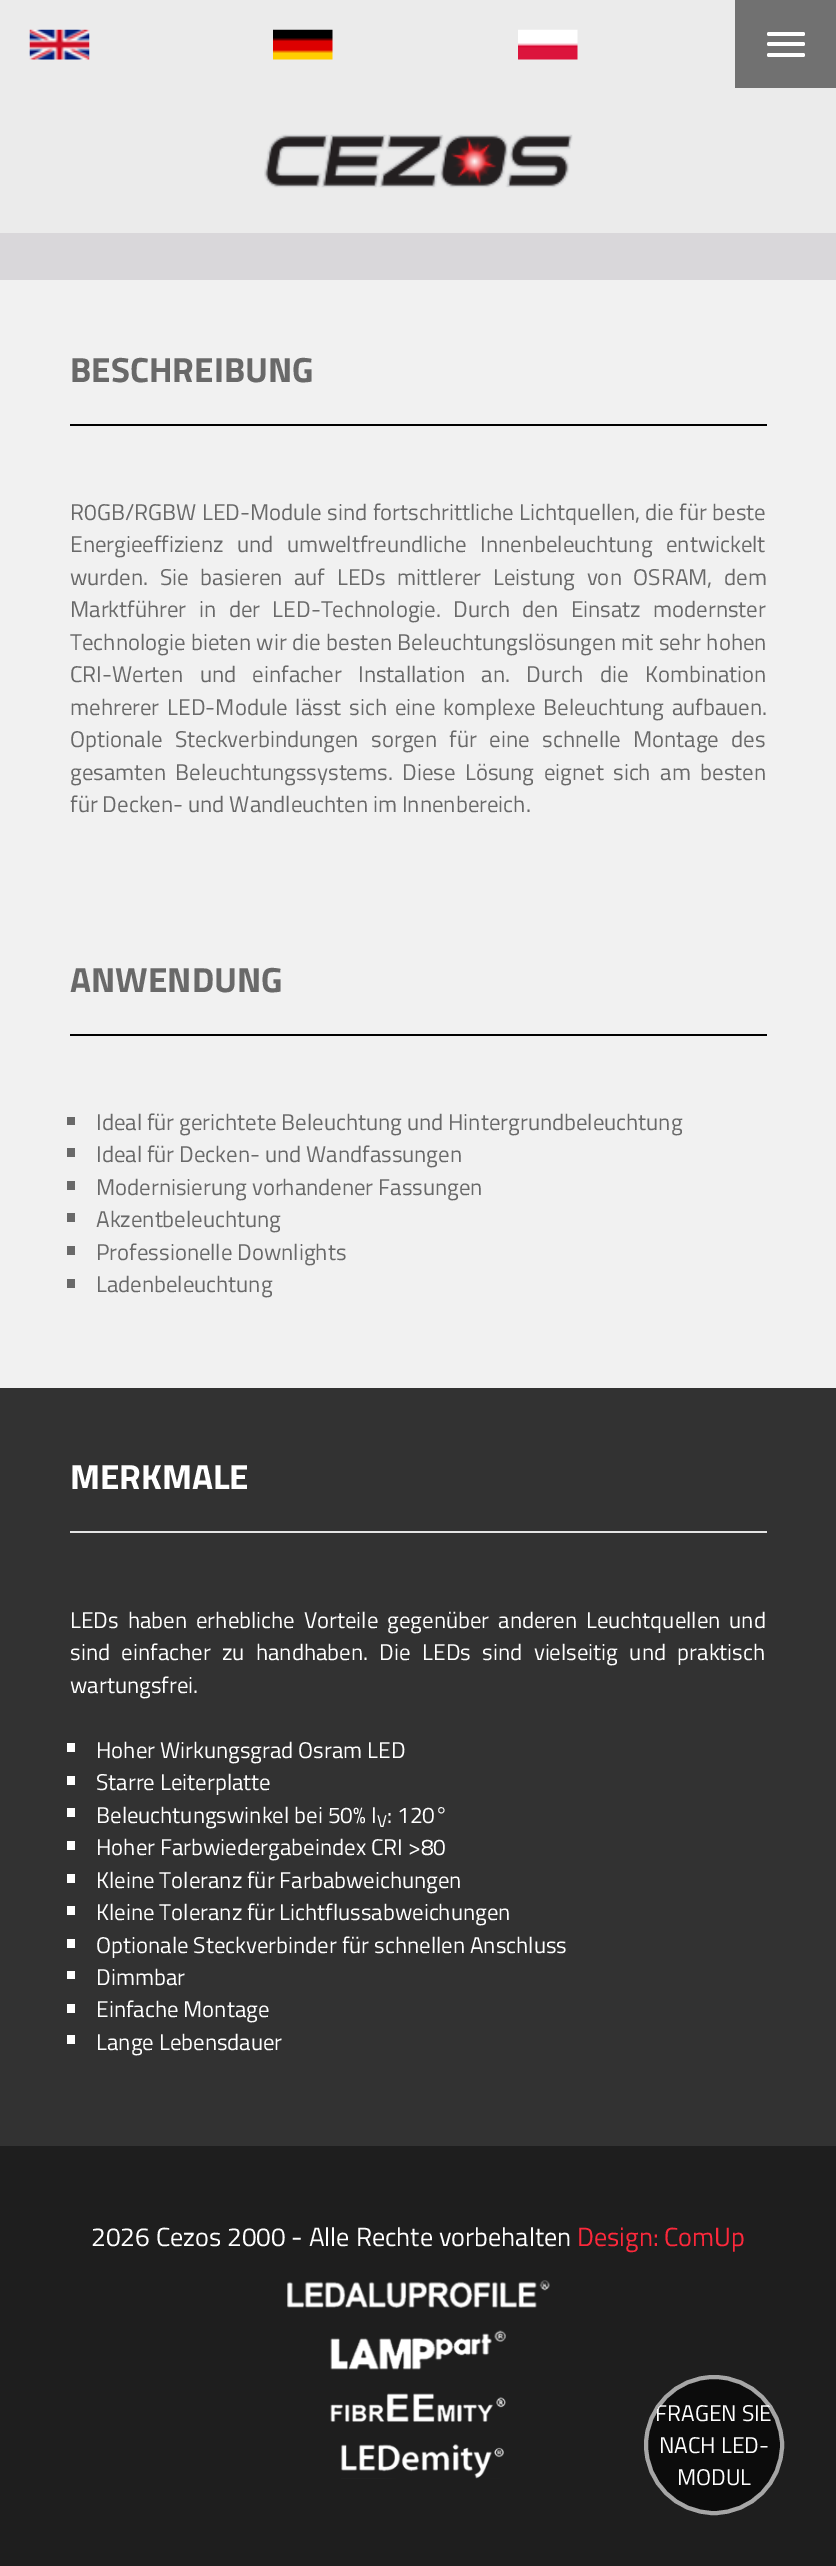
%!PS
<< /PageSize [836 2566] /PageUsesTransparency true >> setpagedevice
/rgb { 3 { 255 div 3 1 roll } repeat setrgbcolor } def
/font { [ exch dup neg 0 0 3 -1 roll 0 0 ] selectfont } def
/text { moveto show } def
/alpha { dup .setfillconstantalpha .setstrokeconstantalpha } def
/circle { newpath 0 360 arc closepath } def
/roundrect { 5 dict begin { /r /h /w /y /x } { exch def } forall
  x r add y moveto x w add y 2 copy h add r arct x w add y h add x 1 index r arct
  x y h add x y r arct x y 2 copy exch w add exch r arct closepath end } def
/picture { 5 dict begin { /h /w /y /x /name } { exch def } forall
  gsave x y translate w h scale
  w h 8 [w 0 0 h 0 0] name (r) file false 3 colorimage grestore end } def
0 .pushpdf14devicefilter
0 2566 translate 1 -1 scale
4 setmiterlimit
30 30 30 rgb
0 0 836 2566 rectfill
235 235 235 rgb
0 0 735 88 rectfill
(img_01.rgb) 29 29 61 31 picture
(img_02.rgb) 273 29 60 31 picture
(img_03.rgb) 518 29 60 31 picture
113 113 113 rgb
735 0 101 88 rectfill
255 255 255 rgb
767 32 38 4 2 roundrect fill
767 42 38 4 2 roundrect fill
767 53 38 4 2 roundrect fill
235 235 235 rgb
0 88 836 145 rectfill
(img_04.rgb) 264 134 309 54 picture
217 215 218 rgb
0 233 836 47 rectfill
241 241 241 rgb
0 280 836 1108 rectfill
0 0 0 rgb
70 424 697 2 rectfill
70 1034 697 2 rectfill
105 105 105 rgb
67 1117 8 8 rectfill
67 1148 8 9 rectfill
67 1181 8 9 rectfill
67 1213 8 9 rectfill
67 1246 8 9 rectfill
67 1279 8 9 rectfill
50 50 50 rgb
0 1388 836 758 rectfill
228 228 228 rgb
70 1531 697 2 rectfill
255 255 255 rgb
67 1743 8 9 rectfill
67 1776 8 9 rectfill
67 1808 8 9 rectfill
67 1841 8 9 rectfill
67 1874 8 9 rectfill
67 1906 8 9 rectfill
67 1939 8 9 rectfill
67 1971 8 8 rectfill
67 2004 8 9 rectfill
67 2035 8 9 rectfill
(img_05.rgb) 287 2280 263 28 picture
(img_06.rgb) 330 2330 176 40 picture
(img_07.rgb) 330 2393 176 29 picture
(img_08.rgb) 341 2444 163 35 picture
12 12 12 rgb
714 2445 70 circle fill
0.8 alpha
204 204 204 rgb
4 setlinewidth
714 2445 68 circle stroke
/TitilliumWeb-Bold 35 font
1 alpha
105 105 105 rgb
(BESCHREIBUNG) 70 382 text
/TitilliumWeb-Regular 22.75 font
70 520 moveto 0.5 0 32 (R0GB/RGBW LED-Module sind fortschrittliche Lichtquellen, die für beste) widthshow
70 552 moveto 8.5 0 32 (Energieeffizienz und umweltfreundliche Innenbeleuchtung entwickelt) widthshow
70 585 moveto 6.75 0 32 (wurden. Sie basieren auf LEDs mittlerer Leistung von OSRAM, dem) widthshow
70 617 moveto 7.5 0 32 (Marktführer in der LED-Technologie. Durch den Einsatz modernster) widthshow
70 650 moveto 0.5 0 32 (Technologie bieten wir die besten Beleuchtungslösungen mit sehr hohen) widthshow
70 682 moveto 11.5 0 32 (CRI-Werten und einfacher Installation an. Durch die Kombination) widthshow
70 715 moveto 3 0 32 (mehrerer LED-Module lässt sich eine komplexe Beleuchtung aufbauen.) widthshow
70 747 moveto 7.5 0 32 (Optionale Steckverbindungen sorgen für eine schnelle Montage des) widthshow
70 780 moveto 4.5 0 32 (gesamten Beleuchtungssystems. Diese Lösung eignet sich am besten) widthshow
(für Decken- und Wandleuchten im Innenbereich.) 70 812 text
/TitilliumWeb-Bold 35 font
(ANWENDUNG) 70 992 text
/TitilliumWeb-Regular 22.75 font
(Ideal für gerichtete Beleuchtung und Hintergrundbeleuchtung) 96 1130 text
(Ideal für Decken- und Wandfassungen) 96 1162 text
(Modernisierung vorhandener Fassungen) 96 1195 text
(Akzentbeleuchtung) 96 1227 text
(Professionelle Downlights) 96 1260 text
(Ladenbeleuchtung) 96 1292 text
/TitilliumWeb-Bold 35 font
255 255 255 rgb
(MERKMALE) 70 1489 text
/TitilliumWeb-Regular 22.75 font
70 1628 moveto 4 0 32 (LEDs haben erhebliche Vorteile gegenüber anderen Leuchtquellen und) widthshow
70 1660 moveto 6.5 0 32 (sind einfacher zu handhaben. Die LEDs sind vielseitig und praktisch) widthshow
(wartungsfrei.) 70 1693 text
(Hoher Wirkungsgrad Osram LED) 96 1758 text
(Starre Leiterplatte) 96 1790 text
(Beleuchtungswinkel bei 50% I) 96 1823 text
(: 120°) 387 1823 text
/TitilliumWeb-Regular 17 font
(V) 377 1827 text
/TitilliumWeb-Regular 22.75 font
(Hoher Farbwiedergabeindex CRI >80) 96 1855 text
(Kleine Toleranz für Farbabweichungen) 96 1888 text
(Kleine Toleranz für Lichtflussabweichungen) 96 1920 text
(Optionale Steckverbinder für schnellen Anschluss) 96 1953 text
(Dimmbar) 96 1985 text
(Einfache Montage) 96 2017 text
(Lange Lebensdauer) 96 2050 text
/TitilliumWeb-Regular 26.25 font
(2026 Cezos 2000 - Alle Rechte vorbehalten) 91 2246 text
253 40 59 rgb
(Design: ComUp) 577 2246 text
gsave
648 2378 133 133 66.5 roundrect clip newpath
/TitilliumWeb-Regular 22.75 font
255 255 255 rgb
(FRAGEN SIE) 655 2421 text
grestore
/TitilliumWeb-Regular 22.75 font
255 255 255 rgb
(NACH LED-) 659 2453 text
(MODUL) 677 2485 text
.poppdf14devicefilter showpage
